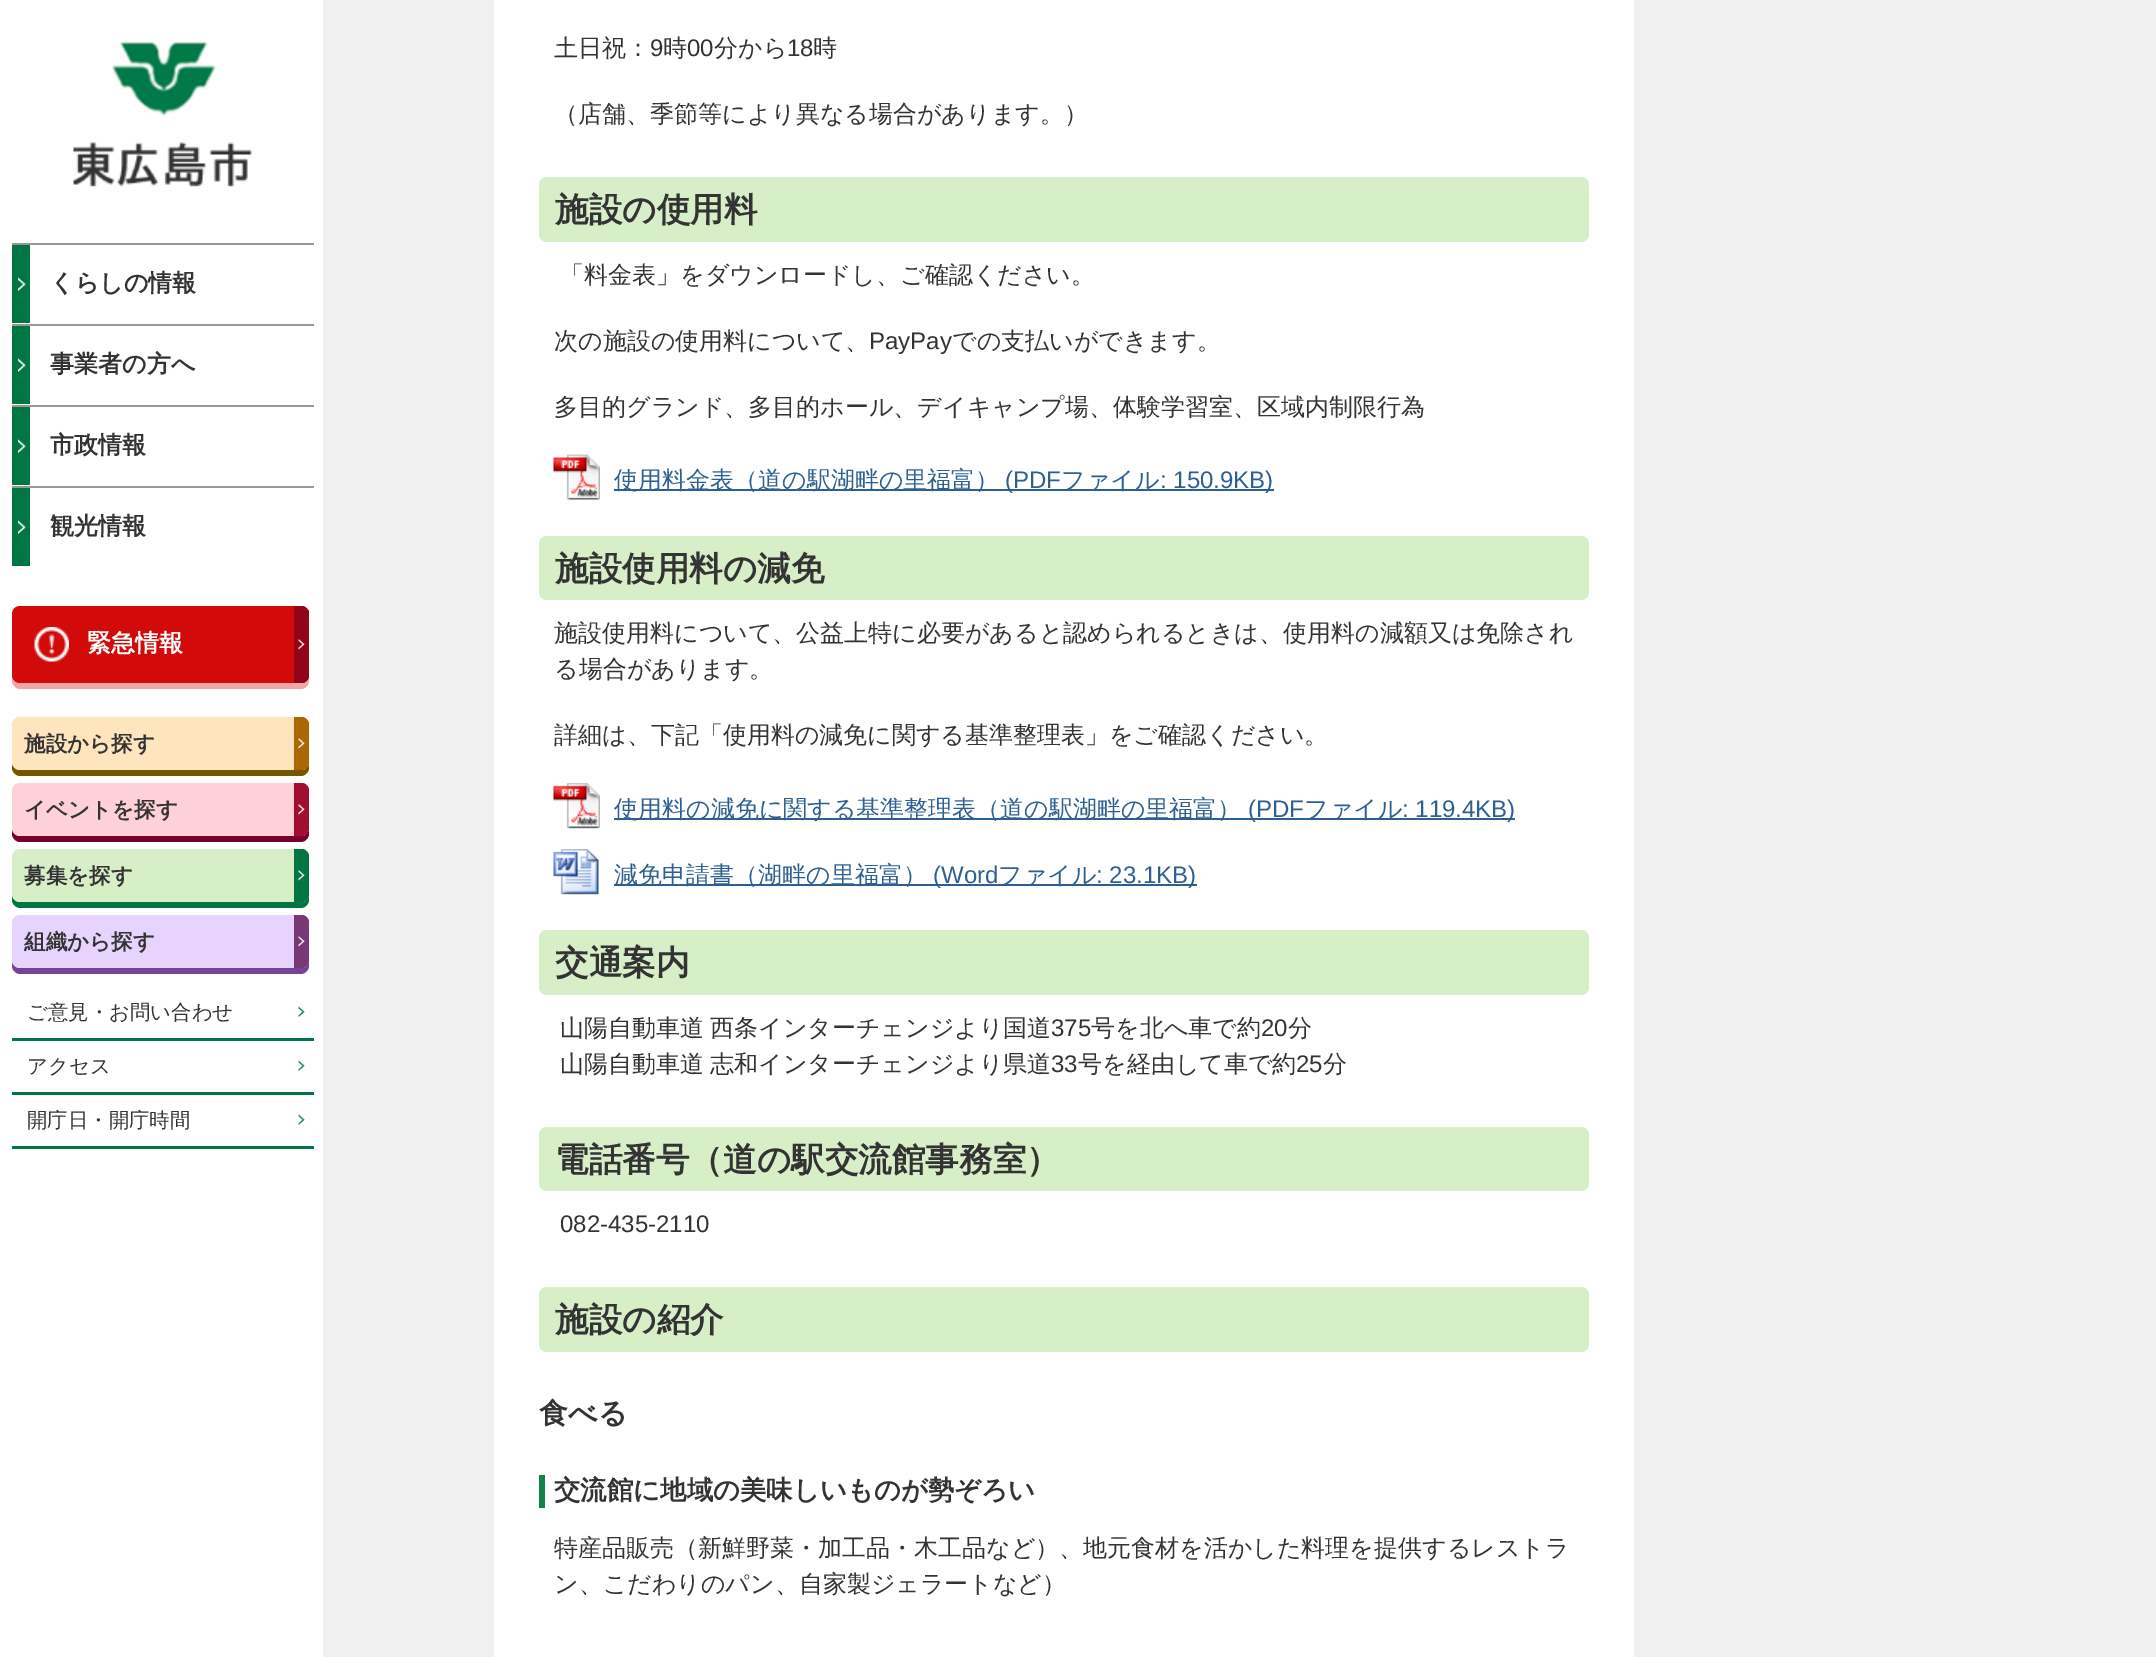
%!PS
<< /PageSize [2156 1657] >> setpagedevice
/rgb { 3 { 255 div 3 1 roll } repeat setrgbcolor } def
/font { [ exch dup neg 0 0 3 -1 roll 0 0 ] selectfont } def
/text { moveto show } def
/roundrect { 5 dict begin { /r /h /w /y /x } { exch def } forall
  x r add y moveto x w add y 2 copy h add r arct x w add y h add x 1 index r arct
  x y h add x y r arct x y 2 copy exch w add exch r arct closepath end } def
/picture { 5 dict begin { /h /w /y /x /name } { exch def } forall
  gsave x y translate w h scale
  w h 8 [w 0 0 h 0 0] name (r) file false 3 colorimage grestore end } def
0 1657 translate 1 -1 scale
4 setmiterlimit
240 240 240 rgb
0 0 2156 1657 rectfill
255 255 255 rgb
0 0 323 1657 rectfill
(img_01.rgb) 73 42 180 145 picture
152 152 152 rgb
12 243 302 2 rectfill
0 118 67 rgb
12 245 18 78 rectfill
(img_02.rgb) 18 277 8 14 picture
152 152 152 rgb
12 324 302 2 rectfill
0 118 67 rgb
12 326 18 78 rectfill
(img_02.rgb) 18 358 8 14 picture
152 152 152 rgb
12 405 302 2 rectfill
0 118 67 rgb
12 407 18 78 rectfill
(img_02.rgb) 18 439 8 14 picture
152 152 152 rgb
12 486 302 2 rectfill
0 118 67 rgb
12 488 18 78 rectfill
(img_02.rgb) 18 520 8 14 picture
239 168 168 rgb
12 675 moveto 0 6 rlineto 0 4 4 8 8 8 rcurveto 281 0 rlineto 4 0 8 -4 8 -8 rcurveto 0 -6 rlineto 0 4 -3 7 -7 7 rcurveto -282 0 rlineto -5 0 -8 -3 -8 -7 rcurveto closepath fill
210 10 10 rgb
12 606 297 77 8 roundrect fill
(img_03.rgb) 34 627 35 35 picture
146 5 24 rgb
294 606 moveto 7.5 0 rlineto 4 0 7.5 3.5 7.5 7.5 rcurveto 0 62 rlineto 0 4 -3.5 7.5 -7.5 7.5 rcurveto -7.5 0 rlineto closepath fill
(img_04.rgb) 298 639 7 11 picture
118 87 0 rgb
12 762 moveto 0 6 rlineto 0 4 4 8 8 8 rcurveto 281 0 rlineto 4 0 8 -4 8 -8 rcurveto 0 -6 rlineto 0 4 -3 8 -7 8 rcurveto -282 0 rlineto -5 0 -8 -4 -8 -8 rcurveto closepath fill
255 229 190 rgb
12 717 297 53 8 roundrect fill
171 103 0 rgb
294 717 moveto 7.5 0 rlineto 4 0 7.5 3.5 7.5 7.5 rcurveto 0 38 rlineto 0 4 -3.5 7.5 -7.5 7.5 rcurveto -7.5 0 rlineto closepath fill
(img_05.rgb) 298 738 7 11 picture
118 0 47 rgb
12 828 moveto 0 6 rlineto 0 4 4 8 8 8 rcurveto 281 0 rlineto 4 0 8 -4 8 -8 rcurveto 0 -6 rlineto 0 4 -3 8 -7 8 rcurveto -282 0 rlineto -5 0 -8 -4 -8 -8 rcurveto closepath fill
254 208 215 rgb
12 783 297 53 8 roundrect fill
161 14 48 rgb
294 783 moveto 7.5 0 rlineto 4 0 7.5 3.5 7.5 7.5 rcurveto 0 38 rlineto 0 4 -3.5 7.5 -7.5 7.5 rcurveto -7.5 0 rlineto closepath fill
(img_06.rgb) 298 804 7 11 picture
0 118 67 rgb
12 894 moveto 0 6 rlineto 0 4 4 8 8 8 rcurveto 281 0 rlineto 4 0 8 -4 8 -8 rcurveto 0 -6 rlineto 0 4 -3 8 -7 8 rcurveto -282 0 rlineto -5 0 -8 -4 -8 -8 rcurveto closepath fill
214 239 199 rgb
12 849 297 53 8 roundrect fill
0 118 67 rgb
294 849 moveto 7.5 0 rlineto 4 0 7.5 3.5 7.5 7.5 rcurveto 0 38 rlineto 0 4 -3.5 7.5 -7.5 7.5 rcurveto -7.5 0 rlineto closepath fill
(img_07.rgb) 298 870 7 11 picture
118 68 151 rgb
12 960 moveto 0 6 rlineto 0 4 4 8 8 8 rcurveto 281 0 rlineto 4 0 8 -4 8 -8 rcurveto 0 -6 rlineto 0 4 -3 8 -7 8 rcurveto -282 0 rlineto -5 0 -8 -4 -8 -8 rcurveto closepath fill
230 212 255 rgb
12 915 297 53 8 roundrect fill
120 55 117 rgb
294 915 moveto 7.5 0 rlineto 4 0 7.5 3.5 7.5 7.5 rcurveto 0 38 rlineto 0 4 -3.5 7.5 -7.5 7.5 rcurveto -7.5 0 rlineto closepath fill
(img_08.rgb) 298 936 7 11 picture
0 118 67 rgb
12 1038 302 3 rectfill
(img_09.rgb) 298 1006 7 11 picture
12 1092 302 3 rectfill
(img_09.rgb) 298 1060 7 11 picture
12 1146 302 3 rectfill
(img_09.rgb) 298 1114 7 11 picture
255 255 255 rgb
494 0 1140 1657 rectfill
214 239 199 rgb
539 177 1050 65 8 roundrect fill
(img_10.rgb) 553 454 47 46 picture
45 95 146 rgb
614 489 660 2 rectfill
214 239 199 rgb
539 536 1050 64 8 roundrect fill
(img_11.rgb) 553 783 47 46 picture
45 95 146 rgb
614 818 901 2 rectfill
(img_12.rgb) 553 849 46 46 picture
614 884 583 2 rectfill
214 239 199 rgb
539 930 1050 65 8 roundrect fill
539 1127 1050 64 8 roundrect fill
539 1287 1050 65 8 roundrect fill
15 133 73 rgb
539 1475 6 33 rectfill
/WenQuanYiZenHei-Bold 24 font
51 51 51 rgb
(くらしの情報) 50 291 text
(事業者の方へ) 50 372 text
(市政情報) 50 453 text
(観光情報) 50 534 text
255 255 255 rgb
(緊急情報) 87 651 text
/WenQuanYiZenHei-Bold 21.5 font
51 51 51 rgb
(施設から探す) 24 751 text
(イベントを探す) 24 817 text
(募集を探す) 24 883 text
(組織から探す) 24 949 text
/WenQuanYiZenHei-Medium 20.4 font
(ご意見・お問い合わせ) 27 1019 text
(アクセス) 27 1073 text
(開庁日・開庁時間) 27 1127 text
/WenQuanYiZenHei-Medium 24 font
(土日祝：) 554 56 text
/LiberationSans-Regular 24 font
(9) 650 56 text
/WenQuanYiZenHei-Medium 24 font
(時) 663 56 text
/LiberationSans-Regular 24 font
(00) 687 56 text
/WenQuanYiZenHei-Medium 24 font
(分から) 714 56 text
/LiberationSans-Regular 24 font
(18) 787 56 text
/WenQuanYiZenHei-Medium 24 font
(時) 813 56 text
(（店舗、季節等により異なる場合があります。）) 554 122 text
/WenQuanYiZenHei-Bold 33.6 font
(施設の使用料) 555 221 text
/WenQuanYiZenHei-Medium 24 font
(「料金表」をダウンロードし、ご確認ください。) 560 283 text
(次の施設の使用料について、) 554 349 text
/LiberationSans-Regular 24 font
(PayPay) 869 349 text
/WenQuanYiZenHei-Medium 24 font
(での支払いができます。) 952 349 text
(多目的グランド、多目的ホール、デイキャンプ場、体験学習室、区域内制限行為) 554 415 text
45 95 146 rgb
(使用料金表（道の駅湖畔の里福富）) 614 488 text
/LiberationSans-Regular 24 font
(\(PDF) 1005 488 text
/WenQuanYiZenHei-Medium 24 font
(ファイル) 1061 488 text
/LiberationSans-Regular 24 font
(: 150.9KB\)) 1160 488 text
/WenQuanYiZenHei-Bold 33.6 font
51 51 51 rgb
(施設使用料の減免) 555 580 text
/WenQuanYiZenHei-Medium 24 font
(施設使用料について、公益上特に必要があると認められるときは、使用料の減額又は免除され) 554 641 text
(る場合があります。) 554 677 text
(詳細は、下記「使用料の減免に関する基準整理表」をご確認ください。) 554 743 text
45 95 146 rgb
(使用料の減免に関する基準整理表（道の駅湖畔の里福富）) 614 817 text
/LiberationSans-Regular 24 font
(\(PDF) 1248 817 text
/WenQuanYiZenHei-Medium 24 font
(ファイル) 1304 817 text
/LiberationSans-Regular 24 font
(: 119.4KB\)) 1402 817 text
/WenQuanYiZenHei-Medium 24 font
(減免申請書（湖畔の里福富）) 614 883 text
/LiberationSans-Regular 24 font
(\(Word) 933 883 text
/WenQuanYiZenHei-Medium 24 font
(ファイル) 998 883 text
/LiberationSans-Regular 24 font
(: 23.1KB\)) 1096 883 text
/WenQuanYiZenHei-Bold 33.6 font
51 51 51 rgb
(交通案内) 555 974 text
/WenQuanYiZenHei-Medium 24 font
560 1036 moveto -1 0 32 (山陽自動車道 西条インターチェンジより国道) widthshow
/LiberationSans-Regular 24 font
(375) 1051 1036 text
/WenQuanYiZenHei-Medium 24 font
(号を北へ車で約) 1091 1036 text
/LiberationSans-Regular 24 font
(20) 1261 1036 text
/WenQuanYiZenHei-Medium 24 font
(分) 1288 1036 text
560 1072 moveto -1 0 32 (山陽自動車道 志和インターチェンジより県道) widthshow
/LiberationSans-Regular 24 font
(33) 1051 1072 text
/WenQuanYiZenHei-Medium 24 font
(号を経由して車で約) 1078 1072 text
/LiberationSans-Regular 24 font
(25) 1296 1072 text
/WenQuanYiZenHei-Medium 24 font
(分) 1323 1072 text
/WenQuanYiZenHei-Bold 33.6 font
(電話番号（道の駅交流館事務室）) 555 1171 text
/LiberationSans-Regular 24 font
(082-435-2110) 560 1232 text
/WenQuanYiZenHei-Bold 33.6 font
(施設の紹介) 555 1331 text
/WenQuanYiZenHei-Bold 29 font
(食べる) 539 1423 text
/WenQuanYiZenHei-Bold 26.4 font
(交流館に地域の美味しいものが勢ぞろい) 554 1499 text
/WenQuanYiZenHei-Medium 24 font
(特産品販売（新鮮野菜・加工品・木工品など）、地元食材を活かした料理を提供するレストラ) 554 1556 text
(ン、こだわりのパン、自家製ジェラートなど）) 554 1592 text
showpage
